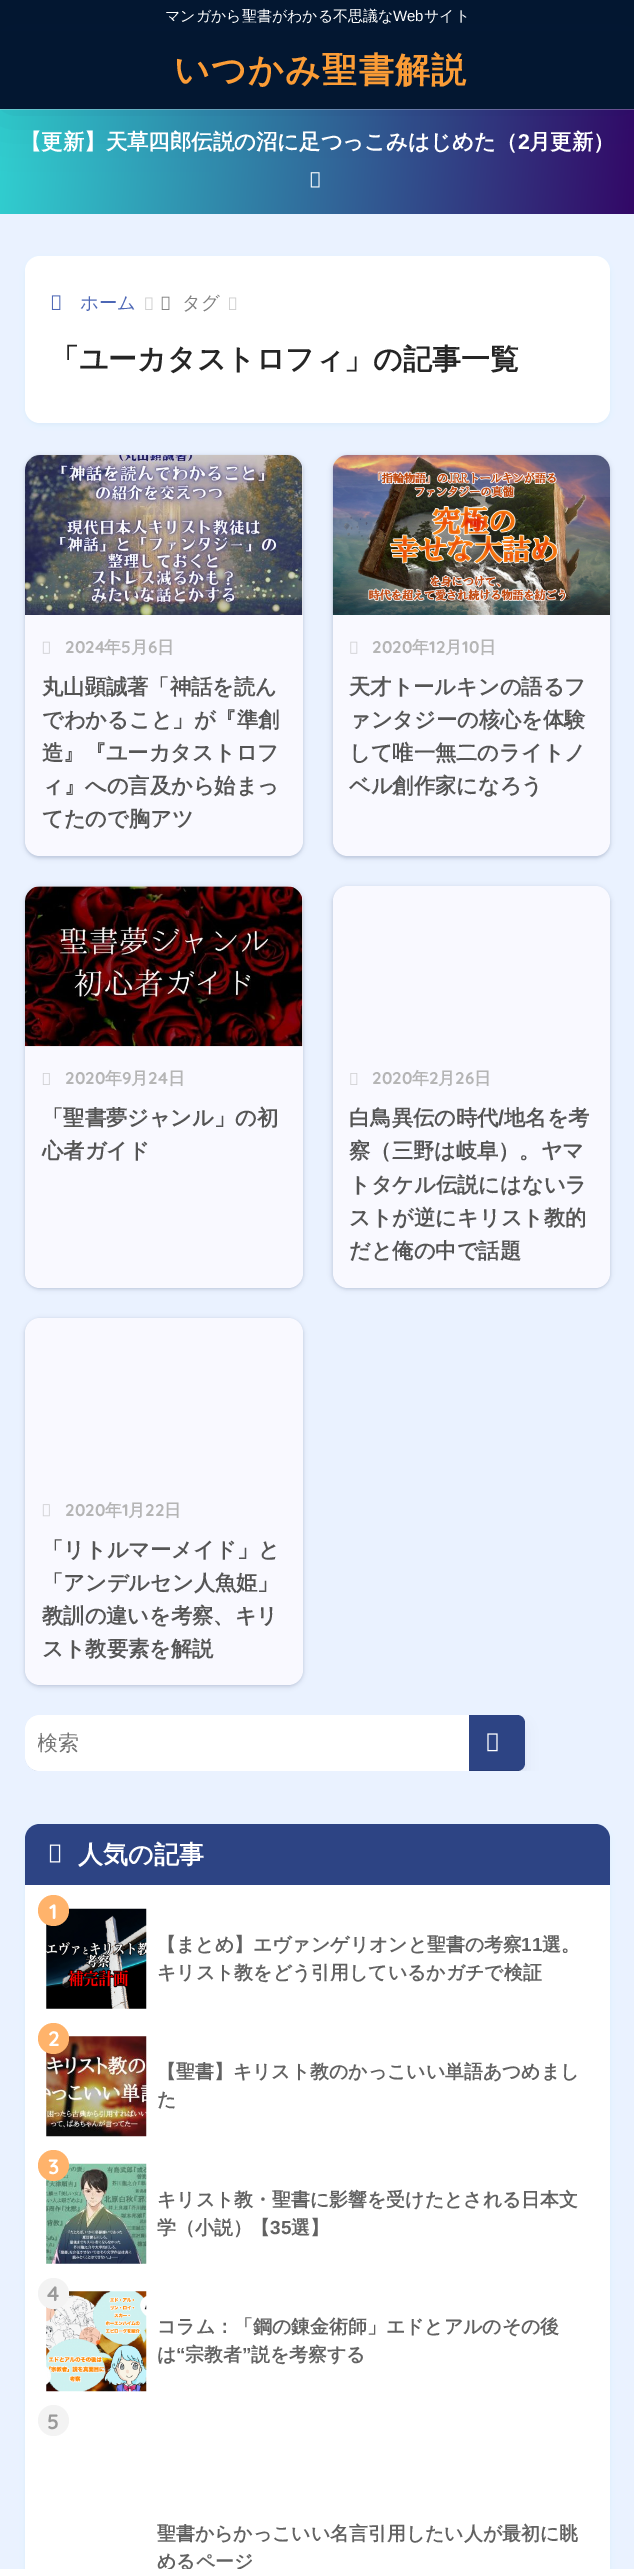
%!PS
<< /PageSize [634 2569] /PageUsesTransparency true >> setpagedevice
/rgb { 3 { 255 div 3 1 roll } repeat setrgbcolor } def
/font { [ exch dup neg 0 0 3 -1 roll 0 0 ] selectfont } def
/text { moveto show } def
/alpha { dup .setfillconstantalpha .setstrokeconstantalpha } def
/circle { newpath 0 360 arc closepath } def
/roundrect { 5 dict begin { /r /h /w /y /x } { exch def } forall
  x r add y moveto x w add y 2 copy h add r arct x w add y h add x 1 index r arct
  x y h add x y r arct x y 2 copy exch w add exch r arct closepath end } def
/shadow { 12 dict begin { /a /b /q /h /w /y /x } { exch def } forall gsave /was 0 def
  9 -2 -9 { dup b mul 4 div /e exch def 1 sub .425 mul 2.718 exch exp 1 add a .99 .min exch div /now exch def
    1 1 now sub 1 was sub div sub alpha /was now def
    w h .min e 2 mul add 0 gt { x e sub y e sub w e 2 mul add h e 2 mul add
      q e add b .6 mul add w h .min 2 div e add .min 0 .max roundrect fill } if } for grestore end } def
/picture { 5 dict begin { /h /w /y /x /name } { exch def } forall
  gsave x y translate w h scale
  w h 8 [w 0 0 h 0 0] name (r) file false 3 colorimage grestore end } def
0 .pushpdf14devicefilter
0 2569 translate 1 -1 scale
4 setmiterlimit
234 242 255 rgb
0 0 634 2569 rectfill
3 23 49 rgb
0 0 634 31 rectfill
gsave 0 109 moveto 634 0 rlineto 0 1 rlineto -634 0 rlineto closepath clip newpath
<< /ShadingType 2 /ColorSpace /DeviceRGB /Coords [-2.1 30 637 86] /Extend [true true] /Function << /FunctionType 2 /Domain [0 1] /C0 [0.431 0.867 0.871] /C1 [0.439 0.322 0.584] /N 1 >> >> shfill grestore
gsave 0 110 moveto 634 0 rlineto 0 104 rlineto -634 0 rlineto closepath clip newpath
<< /ShadingType 2 /ColorSpace /DeviceRGB /Coords [-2.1 134 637 190] /Extend [true true] /Function << /FunctionType 2 /Domain [0 1] /C0 [0.188 0.812 0.816] /C1 [0.2 0.031 0.404] /N 1 >> >> shfill grestore
(img_01.rgb) 310 172 10 16 picture
0 12 66 rgb
0 31 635 78 0 28 0.15 shadow
3 23 49 rgb
0 31 634 78 rectfill
67 133 187 rgb
25 259 585 166 15 2.5 0.07 shadow
255 255 255 rgb
25 256 585 167 15 roundrect fill
(img_02.rgb) 51 295 10 15 picture
(img_03.rgb) 145 297 8 13 picture
(img_04.rgb) 161 296 9 14 picture
(img_05.rgb) 229 297 8 13 picture
24 44 84 rgb
24 455 280 404 16 2 0.1 shadow
25 456 278 402 15 1 0.1 shadow
249 249 255 rgb
25 455 278 401 15 roundrect fill
(img_06.rgb) 25 455 278 160 picture
(img_07.rgb) 42 641 8 13 picture
24 44 84 rgb
331 455 280 404 16 2 0.1 shadow
333 456 277 402 15 1 0.1 shadow
249 249 255 rgb
333 455 277 401 15 roundrect fill
(img_08.rgb) 332 455 278 160 picture
(img_09.rgb) 350 641 8 13 picture
24 44 84 rgb
24 886 280 404 16 2 0.1 shadow
25 888 278 401 15 1 0.1 shadow
249 249 255 rgb
25 886 278 402 15 roundrect fill
(img_10.rgb) 25 886 278 161 picture
(img_11.rgb) 42 1073 8 12 picture
24 44 84 rgb
331 886 280 404 16 2 0.1 shadow
333 888 277 401 15 1 0.1 shadow
249 249 255 rgb
333 886 277 402 15 roundrect fill
(img_12.rgb) 350 1073 8 12 picture
24 44 84 rgb
24 1318 280 370 16 2 0.1 shadow
25 1319 278 367 15 1 0.1 shadow
249 249 255 rgb
25 1318 278 367 15 roundrect fill
(img_13.rgb) 42 1504 8 13 picture
gsave
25 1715 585 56 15 roundrect clip newpath
0 12 66 rgb
29 1726 492 49 4 8 0.1 shadow
grestore
255 255 255 rgb
40 1715 moveto 477 0 rlineto 4.5 0 8 3.5 8 8 rcurveto 0 40 rlineto 0 4.5 -3.5 8 -8 8 rcurveto -477 0 rlineto -8.5 0 -15 -6.5 -15 -15 rcurveto 0 -26 rlineto 0 -8.5 6.5 -15 15 -15 rcurveto closepath fill
45 68 132 rgb
469 1715 moveto 48 0 rlineto 4.5 0 8 3.5 8 8 rcurveto 0 40 rlineto 0 4.5 -3.5 8 -8 8 rcurveto -48 0 rlineto closepath fill
0.1 alpha
0 0 0 rgb
469 1770 52 1 rectfill
1 alpha
(img_14.rgb) 487 1733 11 19 picture
67 133 187 rgb
25 1826 585 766 15 2.5 0.07 shadow
255 255 255 rgb
25 1824 585 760 15 roundrect fill
45 68 132 rgb
40 1824 moveto 555 0 rlineto 8.5 0 15 6.5 15 15 rcurveto 0 46 rlineto -585 0 rlineto 0 -46 rlineto 0 -8.5 6.5 -15 15 -15 rcurveto closepath fill
(img_15.rgb) 49 1844 12 19 picture
(img_16.rgb) 46 1908 101 101 picture
255 179 107 rgb
53.5 1910.5 15.5 circle fill
(img_17.rgb) 46 2036 101 101 picture
53.5 2038.5 15.5 circle fill
(img_18.rgb) 46 2163 101 101 picture
53.5 2165.5 15.5 circle fill
(img_19.rgb) 46 2291 101 101 picture
243 243 243 rgb
53.5 2293.5 15.5 circle fill
53.5 2420.5 15.5 circle fill
/WenQuanYiZenHei-Medium 15 font
255 255 255 rgb
(マンガから聖書がわかる不思議な) 165 21 text
/LiberationSans-Regular 15 font
(Web) 393 21 text
/WenQuanYiZenHei-Medium 15 font
(サイト) 424 21 text
/WenQuanYiZenHei-Bold 35 font
251 156 54 rgb
174 82 moveto 1.25 0 (いつかみ聖書解説) ashow
/WenQuanYiZenHei-Bold 21.4 font
255 255 255 rgb
(【更新】天草四郎伝説の沼に足つっこみはじめた（) 20 149 text
/LiberationSans-Bold 21.4 font
(2) 518 149 text
/WenQuanYiZenHei-Bold 21.4 font
(月更新）) 529 149 text
/WenQuanYiZenHei-Medium 18.5 font
77 103 181 rgb
(ホーム) 80 309 text
128 128 128 rgb
(タグ) 182 309 text
/WenQuanYiZenHei-Bold 28.9 font
37 37 37 rgb
(「ユーカタストロフィ」の記事一覧) 50 369 text
/Quicksand-Bold 17 font
181 181 181 rgb
(2024) 65 653 text
/WenQuanYiZenHei-Bold 17 font
(年) 104 653 text
/Quicksand-Bold 17 font
(5) 121 653 text
/WenQuanYiZenHei-Bold 17 font
(月) 131 653 text
/Quicksand-Bold 17 font
(6) 148 653 text
/WenQuanYiZenHei-Bold 17 font
(日) 157 653 text
/WenQuanYiZenHei-Bold 21.25 font
85 85 85 rgb
(丸山顕誠著「神話を読ん) 42 694 text
(でわかること」が『準創) 42 727 text
(造』『ユーカタストロフ) 42 760 text
(ィ』への言及から始まっ) 42 793 text
(てたので胸アツ) 42 826 text
/Quicksand-Bold 17 font
181 181 181 rgb
(2020) 372 653 text
/WenQuanYiZenHei-Bold 17 font
(年) 412 653 text
/Quicksand-Bold 17 font
(12) 429 653 text
/WenQuanYiZenHei-Bold 17 font
(月) 445 653 text
/Quicksand-Bold 17 font
(10) 462 653 text
/WenQuanYiZenHei-Bold 17 font
(日) 479 653 text
/WenQuanYiZenHei-Bold 21.25 font
85 85 85 rgb
(天才トールキンの語るフ) 349 694 text
(ァンタジーの核心を体験) 349 727 text
(して唯一無二のライトノ) 349 760 text
(ベル創作家になろう) 349 793 text
/Quicksand-Bold 17 font
181 181 181 rgb
(2020) 65 1084 text
/WenQuanYiZenHei-Bold 17 font
(年) 105 1084 text
/Quicksand-Bold 17 font
(9) 122 1084 text
/WenQuanYiZenHei-Bold 17 font
(月) 131 1084 text
/Quicksand-Bold 17 font
(24) 148 1084 text
/WenQuanYiZenHei-Bold 17 font
(日) 168 1084 text
/WenQuanYiZenHei-Bold 21.25 font
85 85 85 rgb
(「聖書夢ジャンル」の初) 42 1125 text
(心者ガイド) 42 1158 text
/Quicksand-Bold 17 font
181 181 181 rgb
(2020) 372 1084 text
/WenQuanYiZenHei-Bold 17 font
(年) 412 1084 text
/Quicksand-Bold 17 font
(2) 429 1084 text
/WenQuanYiZenHei-Bold 17 font
(月) 438 1084 text
/Quicksand-Bold 17 font
(26) 455 1084 text
/WenQuanYiZenHei-Bold 17 font
(日) 474 1084 text
/WenQuanYiZenHei-Bold 21.25 font
85 85 85 rgb
(白鳥異伝の時代) 349 1125 text
/LiberationSans-Bold 21.25 font
(/) 498 1125 text
/WenQuanYiZenHei-Bold 21.25 font
(地名を考) 504 1125 text
(察（三野は岐阜）。ヤマ) 349 1158 text
(トタケル伝説にはないラ) 349 1192 text
(ストが逆にキリスト教的) 349 1225 text
(だと俺の中で話題) 349 1258 text
/Quicksand-Bold 17 font
181 181 181 rgb
(2020) 65 1516 text
/WenQuanYiZenHei-Bold 17 font
(年) 105 1516 text
/Quicksand-Bold 17 font
(1) 122 1516 text
/WenQuanYiZenHei-Bold 17 font
(月) 128 1516 text
/Quicksand-Bold 17 font
(22) 145 1516 text
/WenQuanYiZenHei-Bold 17 font
(日) 164 1516 text
/WenQuanYiZenHei-Bold 21.25 font
85 85 85 rgb
(「リトルマーメイド」と) 42 1557 text
(「アンデルセン人魚姫」) 42 1590 text
(教訓の違いを考察、キリ) 42 1623 text
(スト教要素を解説) 42 1656 text
gsave
38 1729 422 29 rectclip
/WenQuanYiZenHei-Medium 21 font
117 117 117 rgb
(検索) 37 1750 text
grestore
/WenQuanYiZenHei-Bold 25 font
255 255 255 rgb
(人気の記事) 78 1863 text
/Quicksand-Bold 21 font
(1) 49 1919 text
/WenQuanYiZenHei-Bold 18.9 font
98 98 98 rgb
(【まとめ】エヴァンゲリオンと聖書の考察) 157 1951 text
/LiberationSans-Bold 18.9 font
(11) 521 1951 text
/WenQuanYiZenHei-Bold 18.9 font
(選。) 542 1951 text
(キリスト教をどう引用しているかガチで検証) 157 1979 text
/Quicksand-Bold 21 font
255 255 255 rgb
(2) 48 2046 text
/WenQuanYiZenHei-Bold 18.9 font
98 98 98 rgb
(【聖書】キリスト教のかっこいい単語あつめまし) 157 2078 text
(た) 157 2106 text
/Quicksand-Bold 21 font
255 255 255 rgb
(3) 48 2174 text
/WenQuanYiZenHei-Bold 18.9 font
98 98 98 rgb
(キリスト教・聖書に影響を受けたとされる日本文) 157 2206 text
(学（小説）【) 157 2234 text
/LiberationSans-Bold 18.9 font
(35) 270 2234 text
/WenQuanYiZenHei-Bold 18.9 font
(選】) 291 2234 text
/Quicksand-Bold 21 font
154 154 154 rgb
(4) 47 2301 text
/WenQuanYiZenHei-Bold 18.9 font
98 98 98 rgb
(コラム：「鋼の錬金術師」エドとアルのその後) 157 2333 text
(は) 157 2361 text
/LiberationSans-Bold 18.9 font
(“) 176 2361 text
/WenQuanYiZenHei-Bold 18.9 font
(宗教者) 185 2361 text
/LiberationSans-Bold 18.9 font
(”) 242 2361 text
/WenQuanYiZenHei-Bold 18.9 font
(説を考察する) 251 2361 text
/Quicksand-Bold 21 font
154 154 154 rgb
(5) 47 2429 text
/WenQuanYiZenHei-Bold 18.9 font
98 98 98 rgb
(聖書からかっこいい名言引用したい人が最初に眺) 157 2540 text
(めるページ) 157 2568 text
.poppdf14devicefilter showpage
